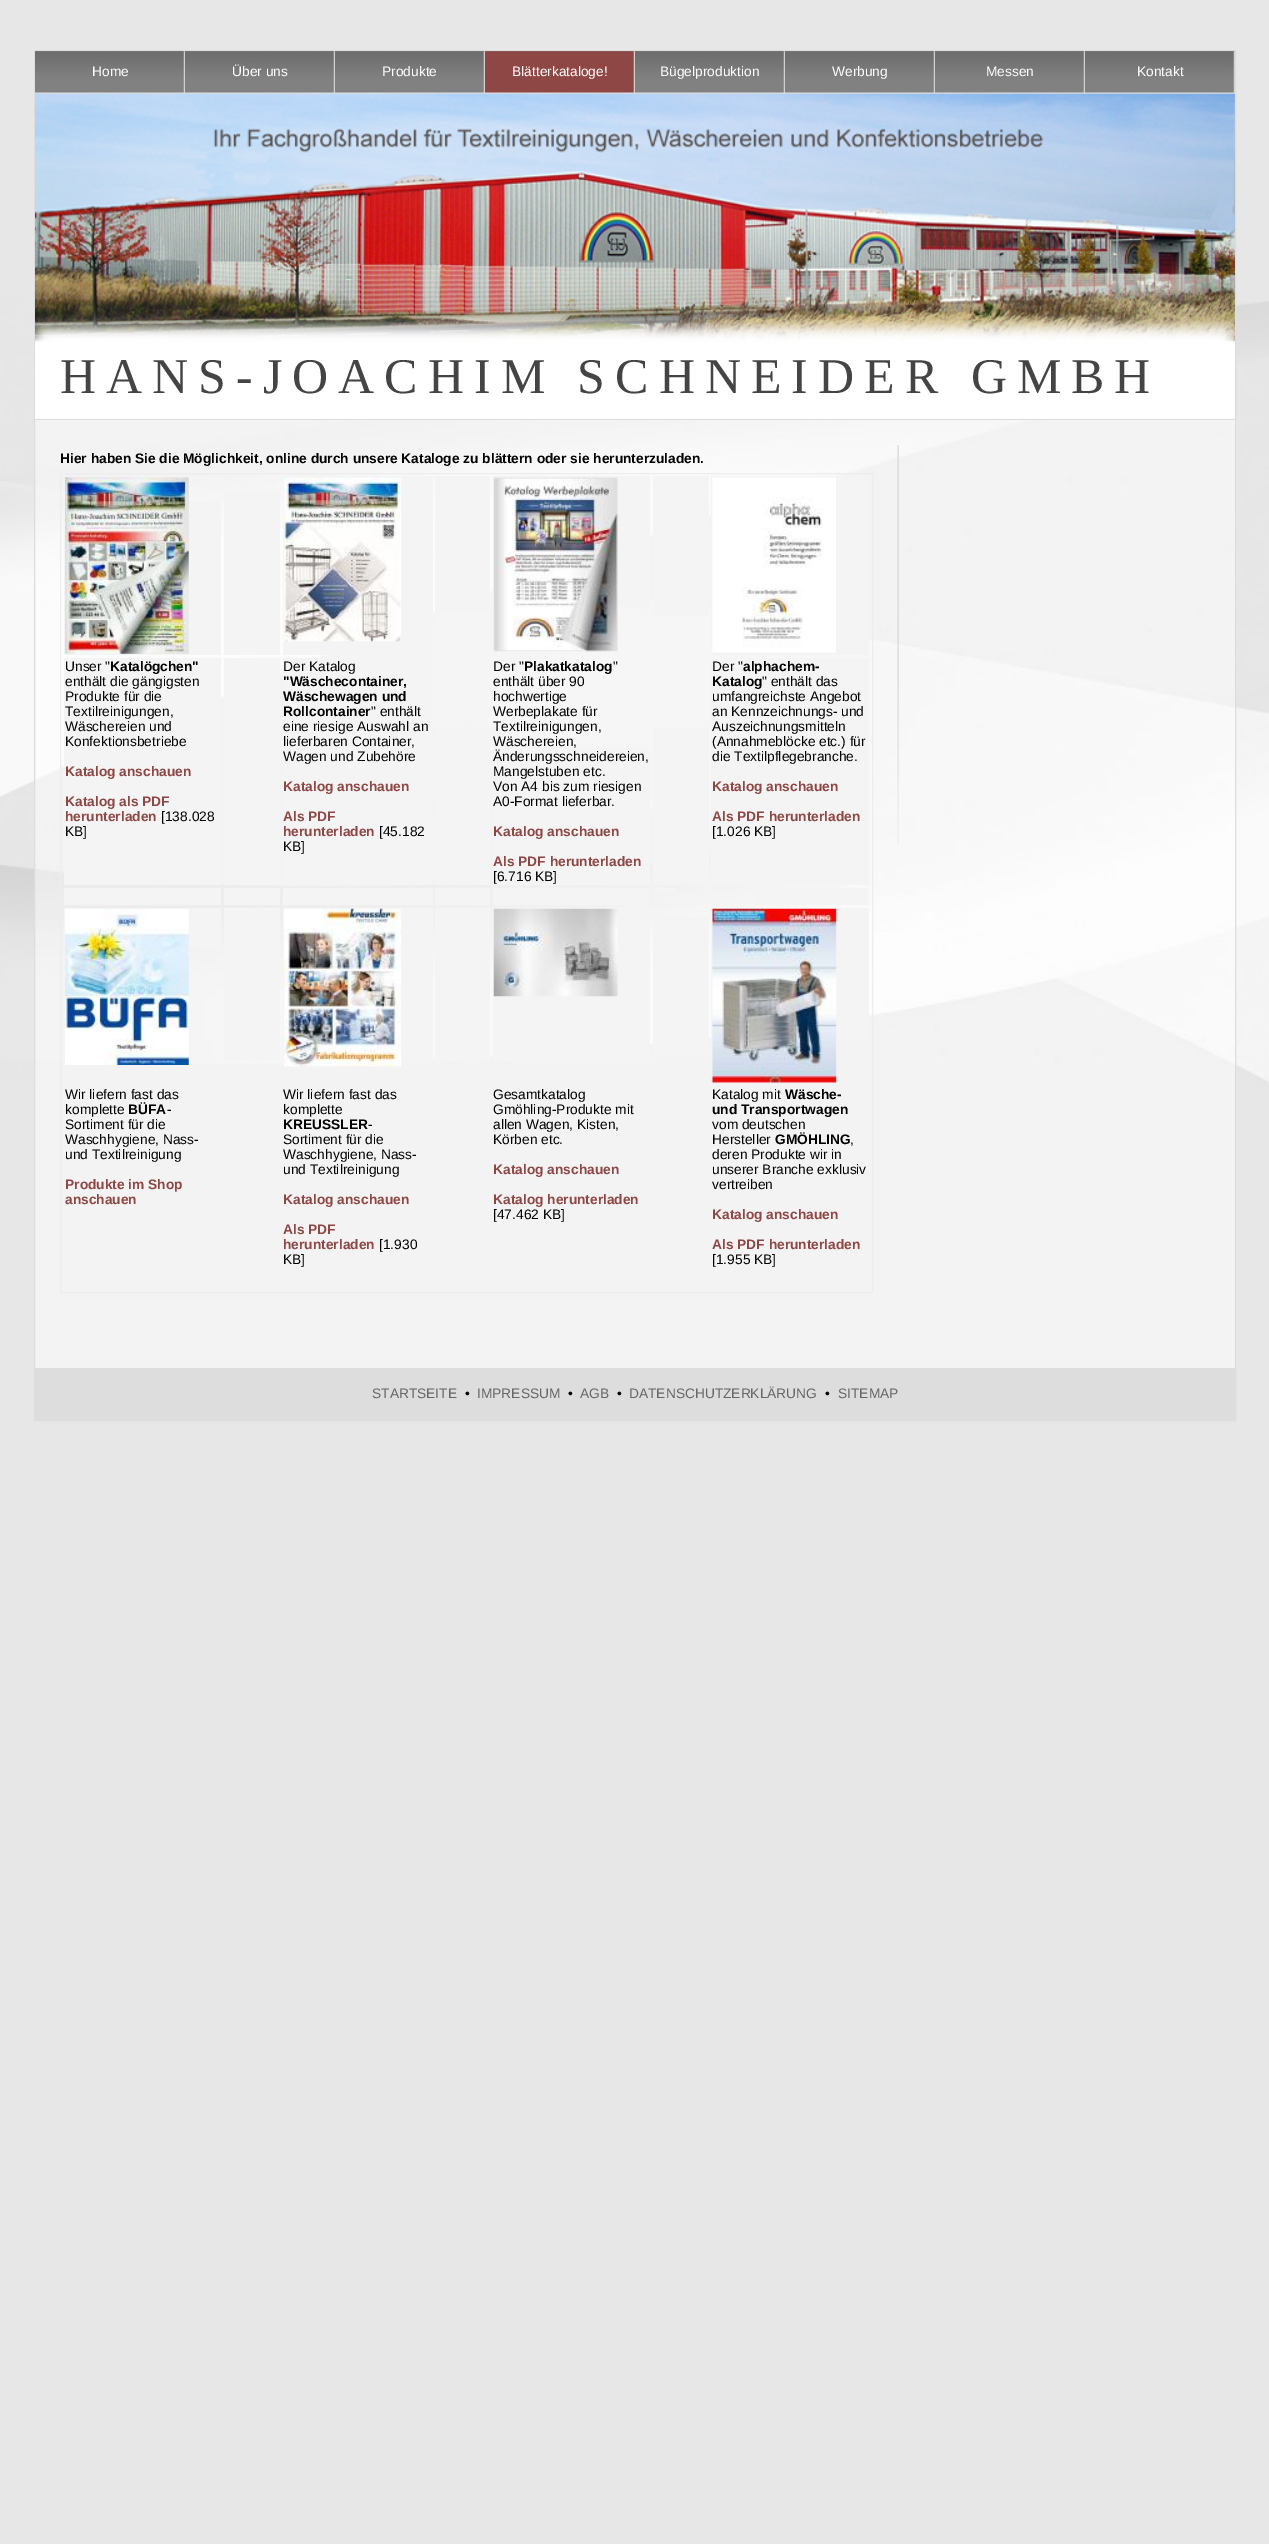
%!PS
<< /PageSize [1269 2544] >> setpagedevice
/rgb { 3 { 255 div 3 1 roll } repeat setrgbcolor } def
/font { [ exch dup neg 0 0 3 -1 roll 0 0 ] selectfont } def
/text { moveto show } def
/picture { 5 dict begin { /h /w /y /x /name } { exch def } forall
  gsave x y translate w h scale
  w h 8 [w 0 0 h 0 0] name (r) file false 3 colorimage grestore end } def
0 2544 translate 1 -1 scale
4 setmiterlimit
231 231 231 rgb
0 0 1269 2544 rectfill
(img_01.rgb) 0 301 1269 781 picture
243 243 243 rgb
35 51 1200 1317 rectfill
(img_02.rgb) 35 418 1200 646 picture
221 221 221 rgb
34.5 50.5 1201 1370 rectstroke
(img_03.rgb) 35 51 1200 43 picture
(img_04.rgb) 35 51 150 43 picture
(img_05.rgb) 185 51 150 43 picture
(img_05.rgb) 335 51 150 43 picture
(img_06.rgb) 485 51 150 43 picture
(img_05.rgb) 635 51 150 43 picture
(img_05.rgb) 785 51 150 43 picture
(img_07.rgb) 935 51 150 43 picture
(img_05.rgb) 1085 51 150 43 picture
(img_08.rgb) 35 93 1200 326 picture
35 419 1200 1 rectfill
237 237 237 rgb
60.5 473.5 812 819 rectstroke
244 244 244 rgb
64 501 157 154 rectfill
(img_09.rgb) 65 477 124 177 picture
224 491 56 164 rectfill
283 476 150 179 rectfill
(img_10.rgb) 283 477 118 165 picture
435 476 55 136 rectfill
493 476 157 131 rectfill
(img_11.rgb) 493 477 125 175 picture
653 476 56 140 rectfill
711 476 158 179 rectfill
(img_12.rgb) 712 477 124 176 picture
64 658 157 227 rectfill
224 658 56 227 rectfill
283 658 150 227 rectfill
435 727 55 158 rectfill
493 747 157 138 rectfill
653 727 56 158 rectfill
711 658 158 227 rectfill
64 888 157 17 rectfill
224 888 56 17 rectfill
283 888 150 17 rectfill
435 888 55 17 rectfill
493 888 157 17 rectfill
654 888 22 5 rectfill
756 888 113 17 rectfill
64 908 157 39 rectfill
(img_13.rgb) 65 909 124 156 picture
224 908 56 152 rectfill
283 908 150 156 rectfill
(img_14.rgb) 284 908 117 159 picture
435 908 55 154 rectfill
493 908 157 154 rectfill
(img_15.rgb) 493 908 125 89 picture
653 917 56 133 rectfill
711 908 158 132 rectfill
(img_16.rgb) 712 908 125 175 picture
(img_17.rgb) 897 445 2 400 picture
221 221 221 rgb
35 1368 1200 52 rectfill
/LiberationSans-Regular 13.75 font
255 255 255 rgb
(Home) 92 76 text
(Über uns) 232 76 text
(Produkte) 382 76 text
(Blätterkataloge!) 512 76 text
(Bügelproduktion) 660 76 text
(Werbung) 832 76 text
(Messen) 986 76 text
(Kontakt) 1137 76 text
/LiberationSerif-Regular 50 font
68 68 68 rgb
60 393 moveto 10 0 (HANS-JOACHIM SCHNEIDER GMBH) ashow
/LiberationSans-Bold 13.75 font
0 0 0 rgb
(Hier haben Sie die Möglichkeit, online durch unsere Kataloge zu blättern oder sie herunterzuladen.) 60 463 text
/LiberationSans-Regular 13.75 font
(Unser ") 65 671 text
/LiberationSans-Bold 13.75 font
(Katalögchen") 110 671 text
/LiberationSans-Regular 13.75 font
(enthält die gängigsten) 65 686 text
(Produkte für die) 65 701 text
(Textilreinigungen,) 65 716 text
(Wäschereien und) 65 731 text
(Konfektionsbetriebe) 65 746 text
/LiberationSans-Bold 13.75 font
143 71 69 rgb
(Katalog anschauen) 65 776 text
(Katalog als PDF) 65 806 text
(herunterladen) 65 821 text
/LiberationSans-Regular 13.75 font
0 0 0 rgb
([138.028) 161 821 text
(KB]) 65 836 text
(Der Katalog) 283 671 text
/LiberationSans-Bold 13.75 font
("Wäschecontainer,) 283 686 text
(Wäschewagen und) 283 701 text
(Rollcontainer) 283 716 text
/LiberationSans-Regular 13.75 font
(" enthält) 371 716 text
(eine riesige Auswahl an) 283 731 text
(lieferbaren Container,) 283 746 text
(Wagen und Zubehöre) 283 761 text
/LiberationSans-Bold 13.75 font
143 71 69 rgb
(Katalog anschauen) 283 791 text
(Als PDF) 283 821 text
(herunterladen) 283 836 text
/LiberationSans-Regular 13.75 font
0 0 0 rgb
([45.182) 379 836 text
(KB]) 283 851 text
(Der ") 493 671 text
/LiberationSans-Bold 13.75 font
(Plakatkatalog) 524 671 text
/LiberationSans-Regular 13.75 font
(") 613 671 text
(enthält über 90) 493 686 text
(hochwertige) 493 701 text
(Werbeplakate für) 493 716 text
(Textilreinigungen,) 493 731 text
(Wäschereien,) 493 746 text
(Änderungsschneidereien,) 493 761 text
(Mangelstuben etc.) 493 776 text
(Von A4 bis zum riesigen) 493 791 text
(A0-Format lieferbar.) 493 806 text
/LiberationSans-Bold 13.75 font
143 71 69 rgb
(Katalog anschauen) 493 836 text
(Als PDF herunterladen) 493 866 text
/LiberationSans-Regular 13.75 font
0 0 0 rgb
([6.716 KB]) 493 881 text
(Der ") 712 671 text
/LiberationSans-Bold 13.75 font
(alphachem-) 743 671 text
(Katalog) 712 686 text
/LiberationSans-Regular 13.75 font
(" enthält das) 762 686 text
(umfangreichste Angebot) 712 701 text
(an Kennzeichnungs- und) 712 716 text
(Auszeichnungsmitteln) 712 731 text
(\(Annahmeblöcke etc.\) für) 712 746 text
(die Textilpflegebranche.) 712 761 text
/LiberationSans-Bold 13.75 font
143 71 69 rgb
(Katalog anschauen) 712 791 text
(Als PDF herunterladen) 712 821 text
/LiberationSans-Regular 13.75 font
0 0 0 rgb
([1.026 KB]) 712 836 text
(Wir liefern fast das) 65 1099 text
(komplette) 65 1114 text
/LiberationSans-Bold 13.75 font
(BÜFA) 128 1114 text
/LiberationSans-Regular 13.75 font
(-) 167 1114 text
(Sortiment für die) 65 1129 text
(Waschhygiene, Nass-) 65 1144 text
(und Textilreinigung) 65 1159 text
/LiberationSans-Bold 13.75 font
143 71 69 rgb
(Produkte im Shop) 65 1189 text
(anschauen) 65 1204 text
/LiberationSans-Regular 13.75 font
0 0 0 rgb
(Wir liefern fast das) 283 1099 text
(komplette) 283 1114 text
/LiberationSans-Bold 13.75 font
(KREUSSLER) 283 1129 text
/LiberationSans-Regular 13.75 font
(-) 368 1129 text
(Sortiment für die) 283 1144 text
(Waschhygiene, Nass-) 283 1159 text
(und Textilreinigung) 283 1174 text
/LiberationSans-Bold 13.75 font
143 71 69 rgb
(Katalog anschauen) 283 1204 text
(Als PDF) 283 1234 text
(herunterladen) 283 1249 text
/LiberationSans-Regular 13.75 font
0 0 0 rgb
([1.930) 379 1249 text
(KB]) 283 1264 text
(Gesamtkatalog) 493 1099 text
(Gmöhling-Produkte mit) 493 1114 text
(allen Wagen, Kisten,) 493 1129 text
(Körben etc.) 493 1144 text
/LiberationSans-Bold 13.75 font
143 71 69 rgb
(Katalog anschauen) 493 1174 text
(Katalog herunterladen) 493 1204 text
/LiberationSans-Regular 13.75 font
0 0 0 rgb
([47.462 KB]) 493 1219 text
(Katalog mit) 712 1099 text
/LiberationSans-Bold 13.75 font
(Wäsche-) 785 1099 text
(und Transportwagen) 712 1114 text
/LiberationSans-Regular 13.75 font
(vom deutschen) 712 1129 text
(Hersteller) 712 1144 text
/LiberationSans-Bold 13.75 font
(GMÖHLING) 775 1144 text
/LiberationSans-Regular 13.75 font
(,) 850 1144 text
(deren Produkte wir in) 712 1159 text
(unserer Branche exklusiv) 712 1174 text
(vertreiben) 712 1189 text
/LiberationSans-Bold 13.75 font
143 71 69 rgb
(Katalog anschauen) 712 1219 text
(Als PDF herunterladen) 712 1249 text
/LiberationSans-Regular 13.75 font
0 0 0 rgb
([1.955 KB]) 712 1264 text
102 102 102 rgb
(STARTSEITE) 372 1398 text
0 0 0 rgb
(•) 465 1398 text
102 102 102 rgb
(IMPRESSUM) 477 1398 text
0 0 0 rgb
(•) 568 1398 text
102 102 102 rgb
(AGB) 580 1398 text
0 0 0 rgb
(•) 617 1398 text
102 102 102 rgb
(DATENSCHUTZERKLÄRUNG) 629 1398 text
0 0 0 rgb
(•) 825 1398 text
102 102 102 rgb
(SITEMAP) 838 1398 text
showpage
